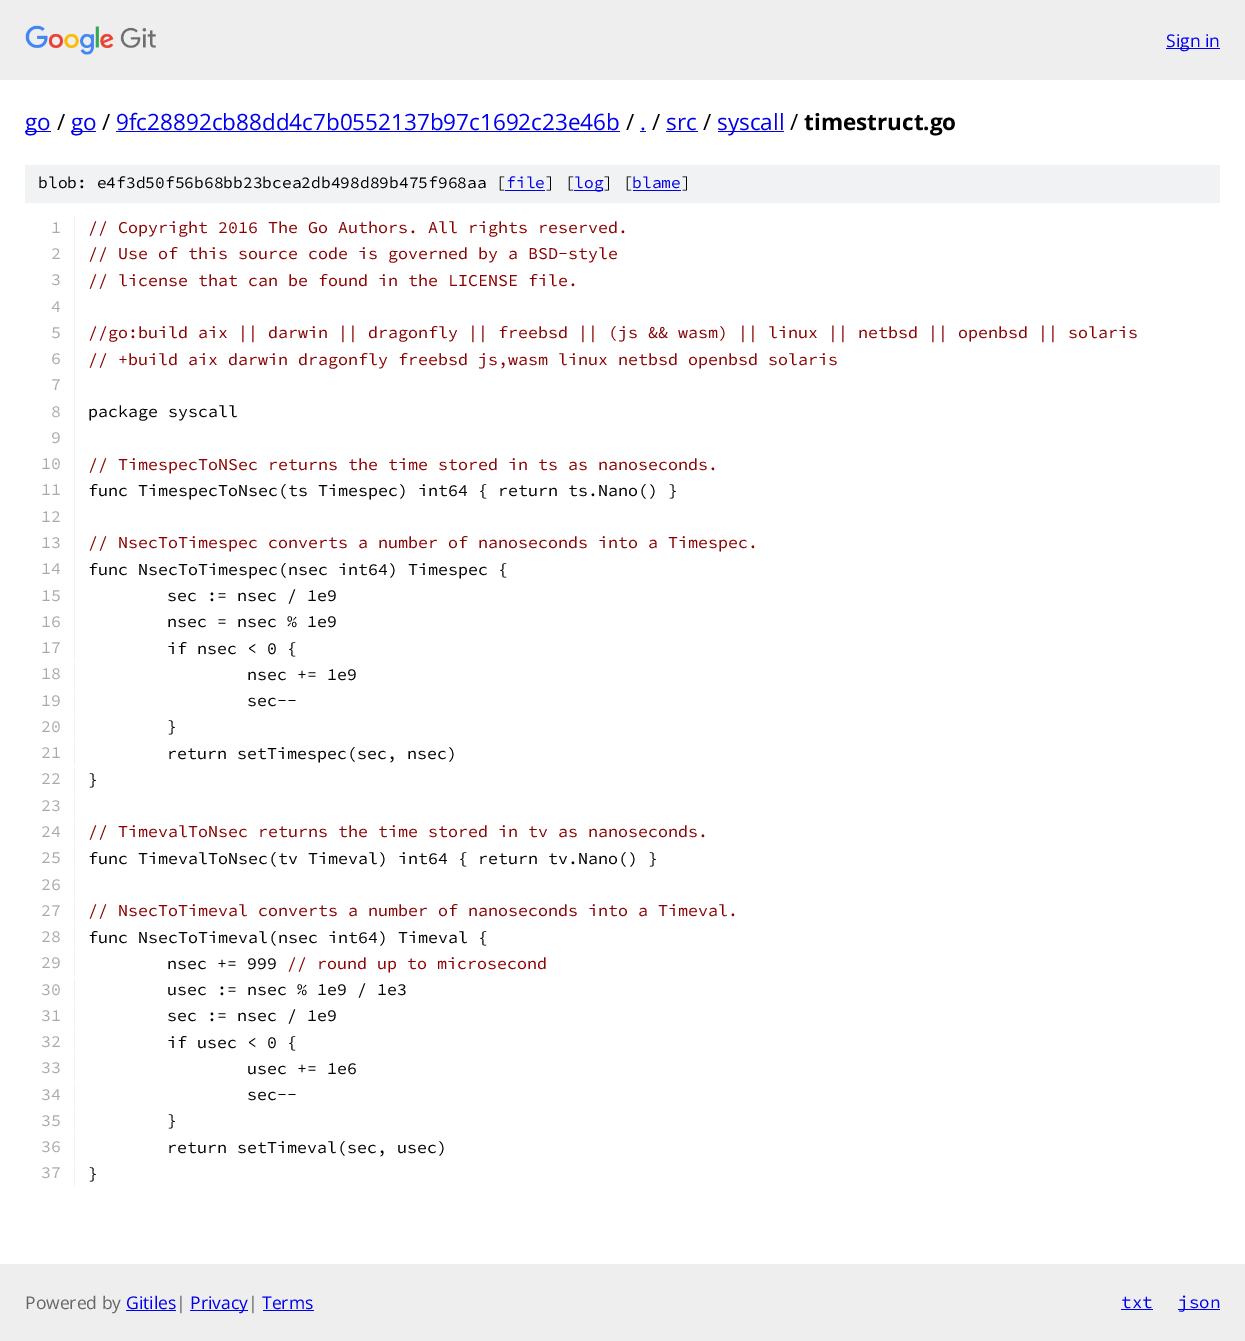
%!PS
<< /PageSize [1245 1341] >> setpagedevice
/rgb { 3 { 255 div 3 1 roll } repeat setrgbcolor } def
/font { [ exch dup neg 0 0 3 -1 roll 0 0 ] selectfont } def
/text { moveto show } def
/picture { 5 dict begin { /h /w /y /x /name } { exch def } forall
  gsave x y translate w h scale
  w h 8 [w 0 0 h 0 0] name (r) file false 3 colorimage grestore end } def
0 1341 translate 1 -1 scale
4 setmiterlimit
255 255 255 rgb
0 0 1245 1341 rectfill
238 238 238 rgb
0 0 1245 80 rectfill
(img_01.rgb) 25 25 131 30 picture
0 0 238 rgb
1166 48 54 1 rectfill
25 131 26 1 rectfill
71 131 25 1 rectfill
116 131 504 1 rectfill
640 131 6 1 rectfill
666 131 32 1 rectfill
718 131 66 1 rectfill
241 242 243 rgb
25 165 1195 38 rectfill
0 0 238 rgb
505 190 40 1 rectfill
574 190 29 1 rectfill
633 190 48 1 rectfill
241 242 243 rgb
74 215 1 446 rectfill
74 663 1 25 rectfill
74 689 1 25 rectfill
74 715 1 25 rectfill
74 741 1 25 rectfill
74 768 1 25 rectfill
74 794 1 25 rectfill
74 820 1 25 rectfill
74 846 1 25 rectfill
74 873 1 25 rectfill
74 899 1 25 rectfill
74 925 1 25 rectfill
74 951 1 25 rectfill
74 978 1 25 rectfill
74 1004 1 25 rectfill
74 1030 1 25 rectfill
74 1056 1 25 rectfill
74 1083 1 25 rectfill
74 1109 1 25 rectfill
74 1135 1 25 rectfill
74 1161 1 25 rectfill
238 238 238 rgb
0 1264 1245 77 rectfill
0 0 238 rgb
126 1310 50 1 rectfill
190 1310 58 1 rectfill
263 1310 51 1 rectfill
1121 1309 32 1 rectfill
1178 1309 42 1 rectfill
/OpenSans-Regular 17.5 font
(Sign in) 1166 47 text
/OpenSans-Regular 22.5 font
(go) 25 130 text
0 0 0 rgb
(/) 57 130 text
0 0 238 rgb
(go) 71 130 text
0 0 0 rgb
(/) 102 130 text
0 0 238 rgb
(9fc28892cb88dd4c7b0552137b97c1692c23e46b) 116 130 text
0 0 0 rgb
(/) 626 130 text
0 0 238 rgb
(.) 640 130 text
0 0 0 rgb
(/) 652 130 text
0 0 238 rgb
(src) 666 130 text
0 0 0 rgb
(/) 703 130 text
0 0 238 rgb
(syscall) 717 130 text
0 0 0 rgb
(/) 790 130 text
/OpenSans-Bold 22.5 font
(timestruct.go) 804 130 text
/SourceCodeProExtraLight-ExtraLight 16.25 font
(blob: e4f3d50f56b68bb23bcea2db498d89b475f968aa [) 38 188 text
0 0 238 rgb
(file) 506 188 text
0 0 0 rgb
(] [) 545 188 text
0 0 238 rgb
(log) 574 188 text
0 0 0 rgb
(] [) 603 188 text
0 0 238 rgb
(blame) 632 188 text
0 0 0 rgb
(]) 681 188 text
/SourceCodeProExtraLight-ExtraLight 16.67 font
170 170 170 rgb
(1) 51 233 text
136 0 0 rgb
(// Copyright 2016 The Go Authors. All rights reserved.) 88 233 text
170 170 170 rgb
(2) 51 259 text
136 0 0 rgb
(// Use of this source code is governed by a BSD-style) 88 259 text
170 170 170 rgb
(3) 51 285 text
136 0 0 rgb
(// license that can be found in the LICENSE file.) 88 286 text
170 170 170 rgb
(4) 51 312 text
(5) 51 338 text
136 0 0 rgb
(//go:build aix || darwin || dragonfly || freebsd || \(js && wasm\) || linux || netbsd || openbsd || solaris) 88 338 text
170 170 170 rgb
(6) 51 364 text
136 0 0 rgb
(// +build aix darwin dragonfly freebsd js,wasm linux netbsd openbsd solaris) 88 365 text
170 170 170 rgb
(7) 51 390 text
(8) 51 417 text
0 0 0 rgb
(package syscall) 88 417 text
170 170 170 rgb
(9) 51 443 text
(10) 41 469 text
136 0 0 rgb
(// TimespecToNSec returns the time stored in ts as nanoseconds.) 88 470 text
170 170 170 rgb
(11) 41 495 text
0 0 0 rgb
(func TimespecToNsec\(ts Timespec\) int64 { return ts.Nano\(\) }) 88 496 text
170 170 170 rgb
(12) 41 522 text
(13) 41 548 text
136 0 0 rgb
(// NsecToTimespec converts a number of nanoseconds into a Timespec.) 88 548 text
170 170 170 rgb
(14) 41 574 text
0 0 0 rgb
(func NsecToTimespec\(nsec int64\) Timespec {) 88 575 text
170 170 170 rgb
(15) 41 601 text
0 0 0 rgb
(sec := nsec / 1e9) 167 601 text
170 170 170 rgb
(16) 41 627 text
0 0 0 rgb
(nsec = nsec % 1e9) 167 627 text
170 170 170 rgb
(17) 41 653 text
0 0 0 rgb
(if nsec < 0 {) 167 654 text
170 170 170 rgb
(18) 41 679 text
0 0 0 rgb
(nsec += 1e9) 247 680 text
170 170 170 rgb
(19) 41 706 text
0 0 0 rgb
(sec--) 247 706 text
170 170 170 rgb
(20) 41 732 text
0 0 0 rgb
(}) 167 732 text
170 170 170 rgb
(21) 41 758 text
0 0 0 rgb
(return setTimespec\(sec, nsec\)) 167 759 text
170 170 170 rgb
(22) 41 784 text
0 0 0 rgb
(}) 88 785 text
170 170 170 rgb
(23) 41 811 text
(24) 41 837 text
136 0 0 rgb
(// TimevalToNsec returns the time stored in tv as nanoseconds.) 88 837 text
170 170 170 rgb
(25) 41 863 text
0 0 0 rgb
(func TimevalToNsec\(tv Timeval\) int64 { return tv.Nano\(\) }) 88 864 text
170 170 170 rgb
(26) 41 890 text
(27) 41 916 text
136 0 0 rgb
(// NsecToTimeval converts a number of nanoseconds into a Timeval.) 88 916 text
170 170 170 rgb
(28) 41 942 text
0 0 0 rgb
(func NsecToTimeval\(nsec int64\) Timeval {) 88 943 text
170 170 170 rgb
(29) 41 968 text
0 0 0 rgb
(nsec += 999) 167 969 text
136 0 0 rgb
(// round up to microsecond) 287 969 text
170 170 170 rgb
(30) 41 995 text
0 0 0 rgb
(usec := nsec % 1e9 / 1e3) 167 995 text
170 170 170 rgb
(31) 41 1021 text
0 0 0 rgb
(sec := nsec / 1e9) 167 1021 text
170 170 170 rgb
(32) 41 1047 text
0 0 0 rgb
(if usec < 0 {) 167 1048 text
170 170 170 rgb
(33) 41 1073 text
0 0 0 rgb
(usec += 1e6) 247 1074 text
170 170 170 rgb
(34) 41 1100 text
0 0 0 rgb
(sec--) 247 1100 text
170 170 170 rgb
(35) 41 1126 text
0 0 0 rgb
(}) 167 1126 text
170 170 170 rgb
(36) 41 1152 text
0 0 0 rgb
(return setTimeval\(sec, usec\)) 167 1153 text
170 170 170 rgb
(37) 41 1178 text
0 0 0 rgb
(}) 88 1179 text
/OpenSans-Regular 17.5 font
102 102 102 rgb
(Powered by) 25 1309 text
0 0 238 rgb
(Gitiles) 126 1309 text
102 102 102 rgb
(|) 176 1309 text
0 0 238 rgb
(Privacy) 190 1309 text
102 102 102 rgb
(|) 248 1309 text
0 0 238 rgb
(Terms) 262 1309 text
/SourceCodeProExtraLight-ExtraLight 17.5 font
(txt) 1121 1308 text
(json) 1178 1308 text
showpage
